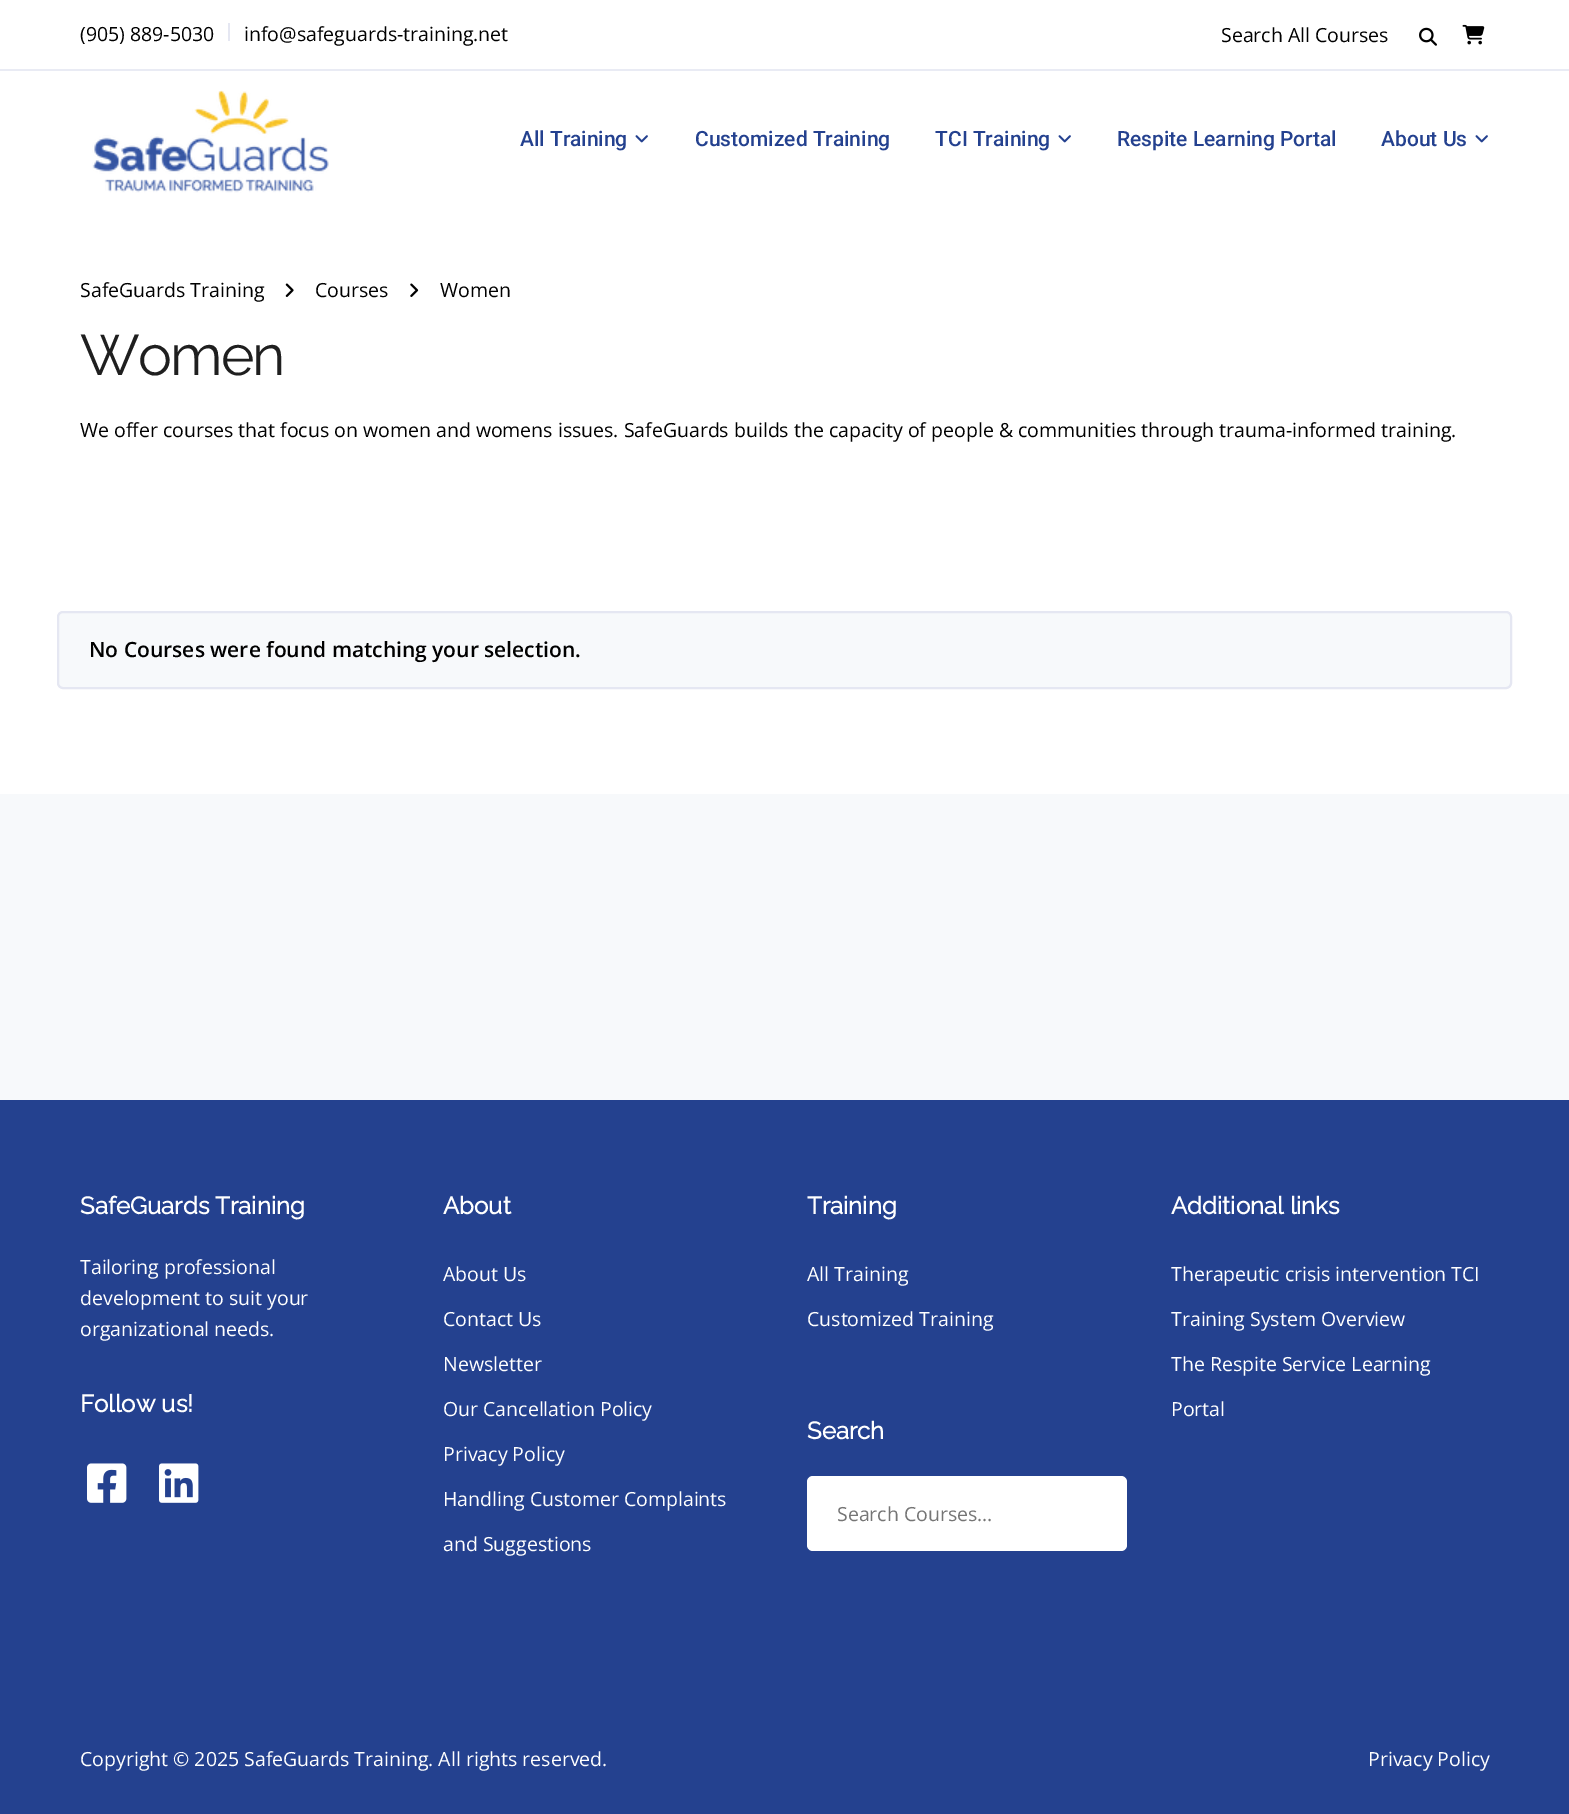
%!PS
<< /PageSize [1569 1814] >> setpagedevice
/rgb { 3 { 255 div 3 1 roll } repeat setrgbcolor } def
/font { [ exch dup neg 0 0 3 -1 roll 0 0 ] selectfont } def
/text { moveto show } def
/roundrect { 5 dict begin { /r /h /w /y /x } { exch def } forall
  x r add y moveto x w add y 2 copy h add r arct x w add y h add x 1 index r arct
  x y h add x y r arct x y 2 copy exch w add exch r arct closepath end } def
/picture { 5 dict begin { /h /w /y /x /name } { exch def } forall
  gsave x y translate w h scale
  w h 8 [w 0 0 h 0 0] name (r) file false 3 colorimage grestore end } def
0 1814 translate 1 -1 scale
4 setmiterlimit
247 249 251 rgb
0 0 1569 1814 rectfill
255 255 255 rgb
0 0 1569 794 rectfill
233 235 244 rgb
0 69 1569 2 rectfill
229 231 242 rgb
228 23 2 18 rectfill
(img_01.rgb) 1419 27 18 19 picture
(img_02.rgb) 1462 24 23 21 picture
(img_03.rgb) 92 90 237 103 picture
(img_04.rgb) 635 135 13 8 picture
(img_04.rgb) 1058 135 13 8 picture
(img_04.rgb) 1475 135 13 8 picture
(img_05.rgb) 285 283 9 14 picture
(img_06.rgb) 410 283 9 14 picture
247 249 251 rgb
58 612 1453 76 5 roundrect gsave fill grestore
229 231 242 rgb
2 setlinewidth
stroke
36 65 143 rgb
0 1100 1569 714 rectfill
(img_07.rgb) 87 1463 40 40 picture
(img_08.rgb) 159 1463 40 40 picture
255 255 255 rgb
807 1476 320 75 6 roundrect fill
/OpenSans-Regular 19.5 font
0 0 0 rgb
(\(905\) 889-5030) 80 41 text
(info@safeguards-training.net) 244 41 text
(Search All Courses) 1221 42 text
/Roboto-Medium 21 font
36 65 143 rgb
(All Training) 520 146 text
(Customized Training) 695 146 text
(TCI Training) 935 146 text
(Respite Learning Portal) 1117 146 text
(About Us) 1381 146 text
/OpenSans-Regular 19.5 font
0 0 0 rgb
(SafeGuards Training) 80 297 text
(Courses) 315 297 text
(Women) 440 297 text
/Raleway-Thin 57 font
31 31 31 rgb
80 375 moveto -1.75 0 (Women) ashow
/OpenSans-Regular 19.5 font
0 0 0 rgb
(We offer courses that focus on women and womens issues. SafeGuards builds the capacity of people & communities through trauma-informed training.) 80 437 text
/OpenSans-SemiBold 21 font
(No Courses were found matching your selection.) 89 657 text
/Raleway-Bold 24 font
255 255 255 rgb
(SafeGuards Training) 80 1214 text
/OpenSans-Regular 19.5 font
(Tailoring professional) 80 1274 text
(development to suit your) 80 1305 text
(organizational needs.) 80 1336 text
/Raleway-Bold 24 font
(Follow us!) 80 1412 text
(About) 443 1214 text
/OpenSans-Regular 19.5 font
(About Us) 443 1281 text
(Contact Us) 443 1326 text
(Newsletter) 443 1371 text
(Our Cancellation Policy) 443 1416 text
(Privacy Policy) 443 1461 text
(Handling Customer Complaints) 443 1506 text
(and Suggestions) 443 1551 text
/Raleway-Bold 24 font
(Training) 807 1214 text
/OpenSans-Regular 19.5 font
(All Training) 807 1281 text
(Customized Training) 807 1326 text
/Raleway-Bold 24 font
(Search) 807 1439 text
/OpenSans-Regular 19.5 font
117 117 117 rgb
(Search Courses…) 837 1521 text
/Raleway-Bold 24 font
255 255 255 rgb
(Additional links) 1171 1214 text
/OpenSans-Regular 19.5 font
(Therapeutic crisis intervention TCI) 1171 1281 text
(Training System Overview) 1171 1326 text
(The Respite Service Learning) 1171 1371 text
(Portal) 1171 1416 text
(Copyright © 2025 SafeGuards Training. All rights reserved.) 80 1766 text
(Privacy Policy) 1368 1766 text
showpage
